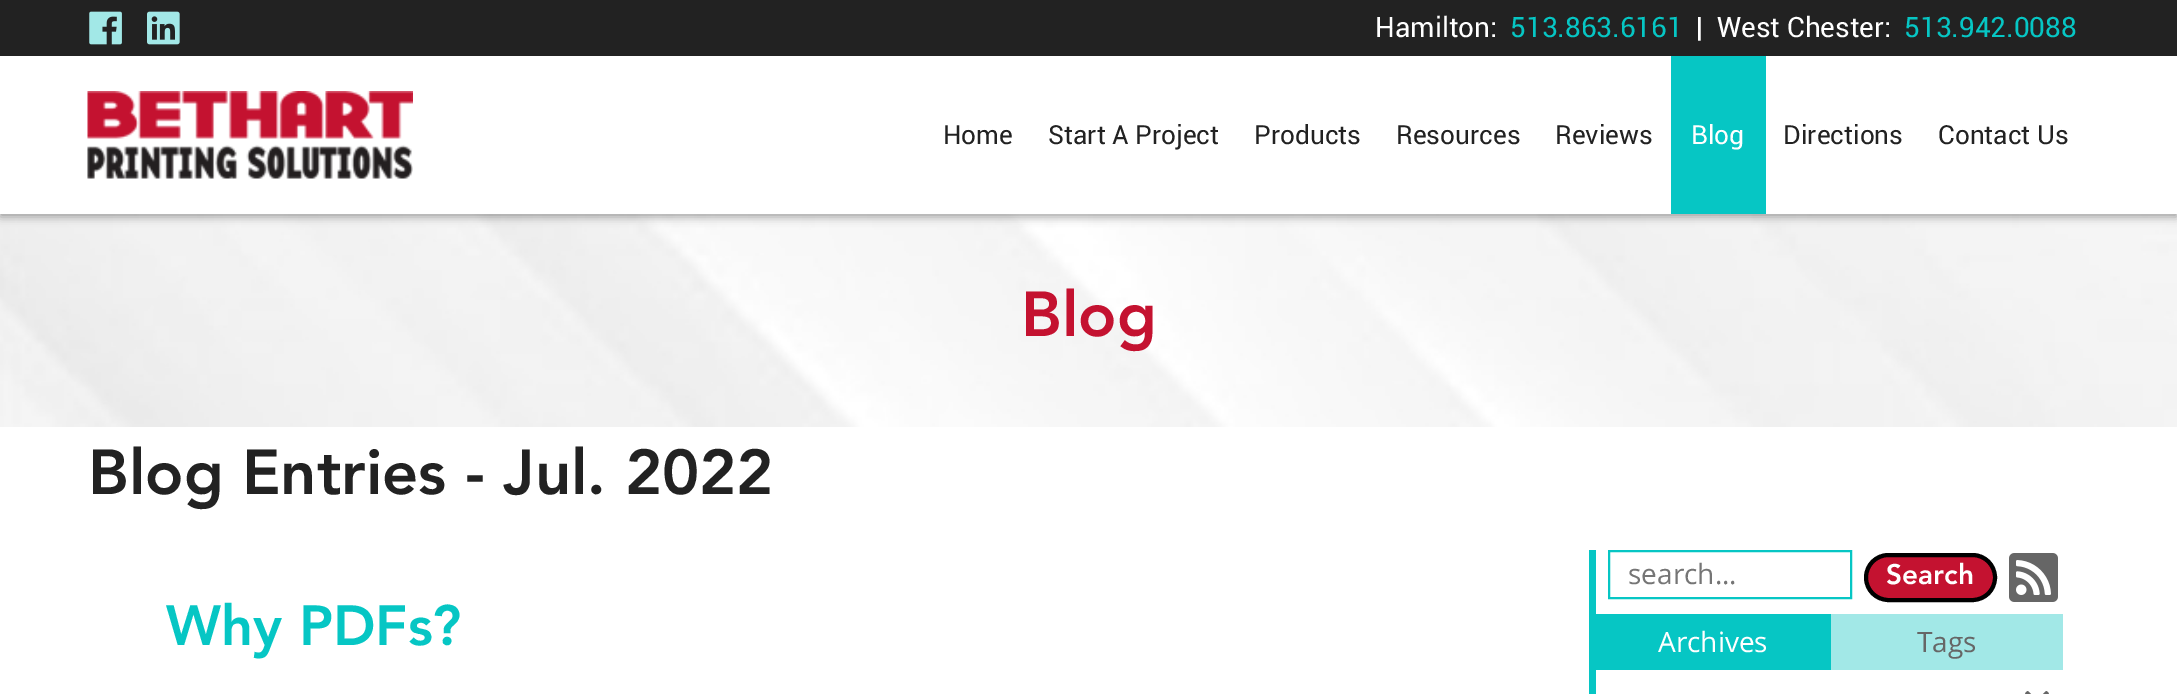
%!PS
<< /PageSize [2177 694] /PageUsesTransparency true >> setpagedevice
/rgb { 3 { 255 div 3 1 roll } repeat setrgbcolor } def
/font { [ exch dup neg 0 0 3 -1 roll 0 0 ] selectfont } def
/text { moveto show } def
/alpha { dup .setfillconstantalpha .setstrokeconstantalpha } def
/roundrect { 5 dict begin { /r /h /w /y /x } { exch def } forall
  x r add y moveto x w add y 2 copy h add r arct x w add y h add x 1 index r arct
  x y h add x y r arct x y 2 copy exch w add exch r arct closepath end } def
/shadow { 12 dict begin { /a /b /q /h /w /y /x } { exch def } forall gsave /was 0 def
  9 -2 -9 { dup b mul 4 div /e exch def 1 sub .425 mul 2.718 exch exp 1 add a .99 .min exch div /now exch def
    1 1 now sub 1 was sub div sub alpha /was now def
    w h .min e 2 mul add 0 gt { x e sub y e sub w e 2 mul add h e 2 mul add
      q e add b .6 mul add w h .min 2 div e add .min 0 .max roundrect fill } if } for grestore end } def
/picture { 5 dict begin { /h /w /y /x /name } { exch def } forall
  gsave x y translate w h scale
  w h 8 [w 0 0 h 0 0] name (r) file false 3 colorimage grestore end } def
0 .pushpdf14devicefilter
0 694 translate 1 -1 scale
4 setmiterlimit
255 255 255 rgb
0 0 2177 694 rectfill
34 34 34 rgb
0 0 2177 56 rectfill
(img_01.rgb) 89 11 33 34 picture
(img_02.rgb) 147 11 33 34 picture
(img_04.rgb) 0 214 2177 213 picture
33 33 33 rgb
0 60 2177 157 0 4.5 0.4 shadow
255 255 255 rgb
0 56 2177 158 rectfill
(img_03.rgb) 87 91 326 88 picture
6 198 196 rgb
1671 56 95 158 rectfill
1589 550 7 144 rectfill
2 setlinewidth
1609 551 242 47 rectstroke
196 18 48 rgb
1866 555 129 45 22.5 roundrect gsave fill grestore
0 0 0 rgb
4 setlinewidth
stroke
(img_05.rgb) 2009 553 49 49 picture
162 232 231 rgb
1831 614 232 56 rectfill
6 198 196 rgb
1596 614 235 56 rectfill
(img_06.rgb) 2025 691 24 3 picture
/Roboto-Regular 28 font
255 255 255 rgb
(Hamilton:) 1375 37 text
6 198 196 rgb
(513.863.6161) 1510 37 text
255 255 255 rgb
(|) 1696 37 text
(West Chester:) 1717 37 text
6 198 196 rgb
(513.942.0088) 1904 37 text
/Roboto-Regular 26.25 font
34 34 34 rgb
(Home) 943 144 text
(Start A Project) 1048 144 text
(Products) 1254 144 text
(Resources) 1396 144 text
(Reviews) 1555 144 text
255 255 255 rgb
(Blog) 1691 144 text
34 34 34 rgb
(Directions) 1783 144 text
(Contact Us) 1938 144 text
/Avenir-Black 63 font
196 18 48 rgb
(Blog) 1021 336 text
34 34 34 rgb
(Blog Entries - Jul. 2022) 88 494 text
/Avenir-Black 56 font
6 198 196 rgb
(Why PDFs?) 166 645 text
/OpenSans-Regular 28 font
117 117 117 rgb
(search...) 1628 584 text
/Avenir-Black 28 font
255 255 255 rgb
(Search) 1886 584 text
/OpenSans-Regular 28 font
(Archives) 1658 652 text
102 102 102 rgb
(Tags) 1917 652 text
.poppdf14devicefilter showpage
